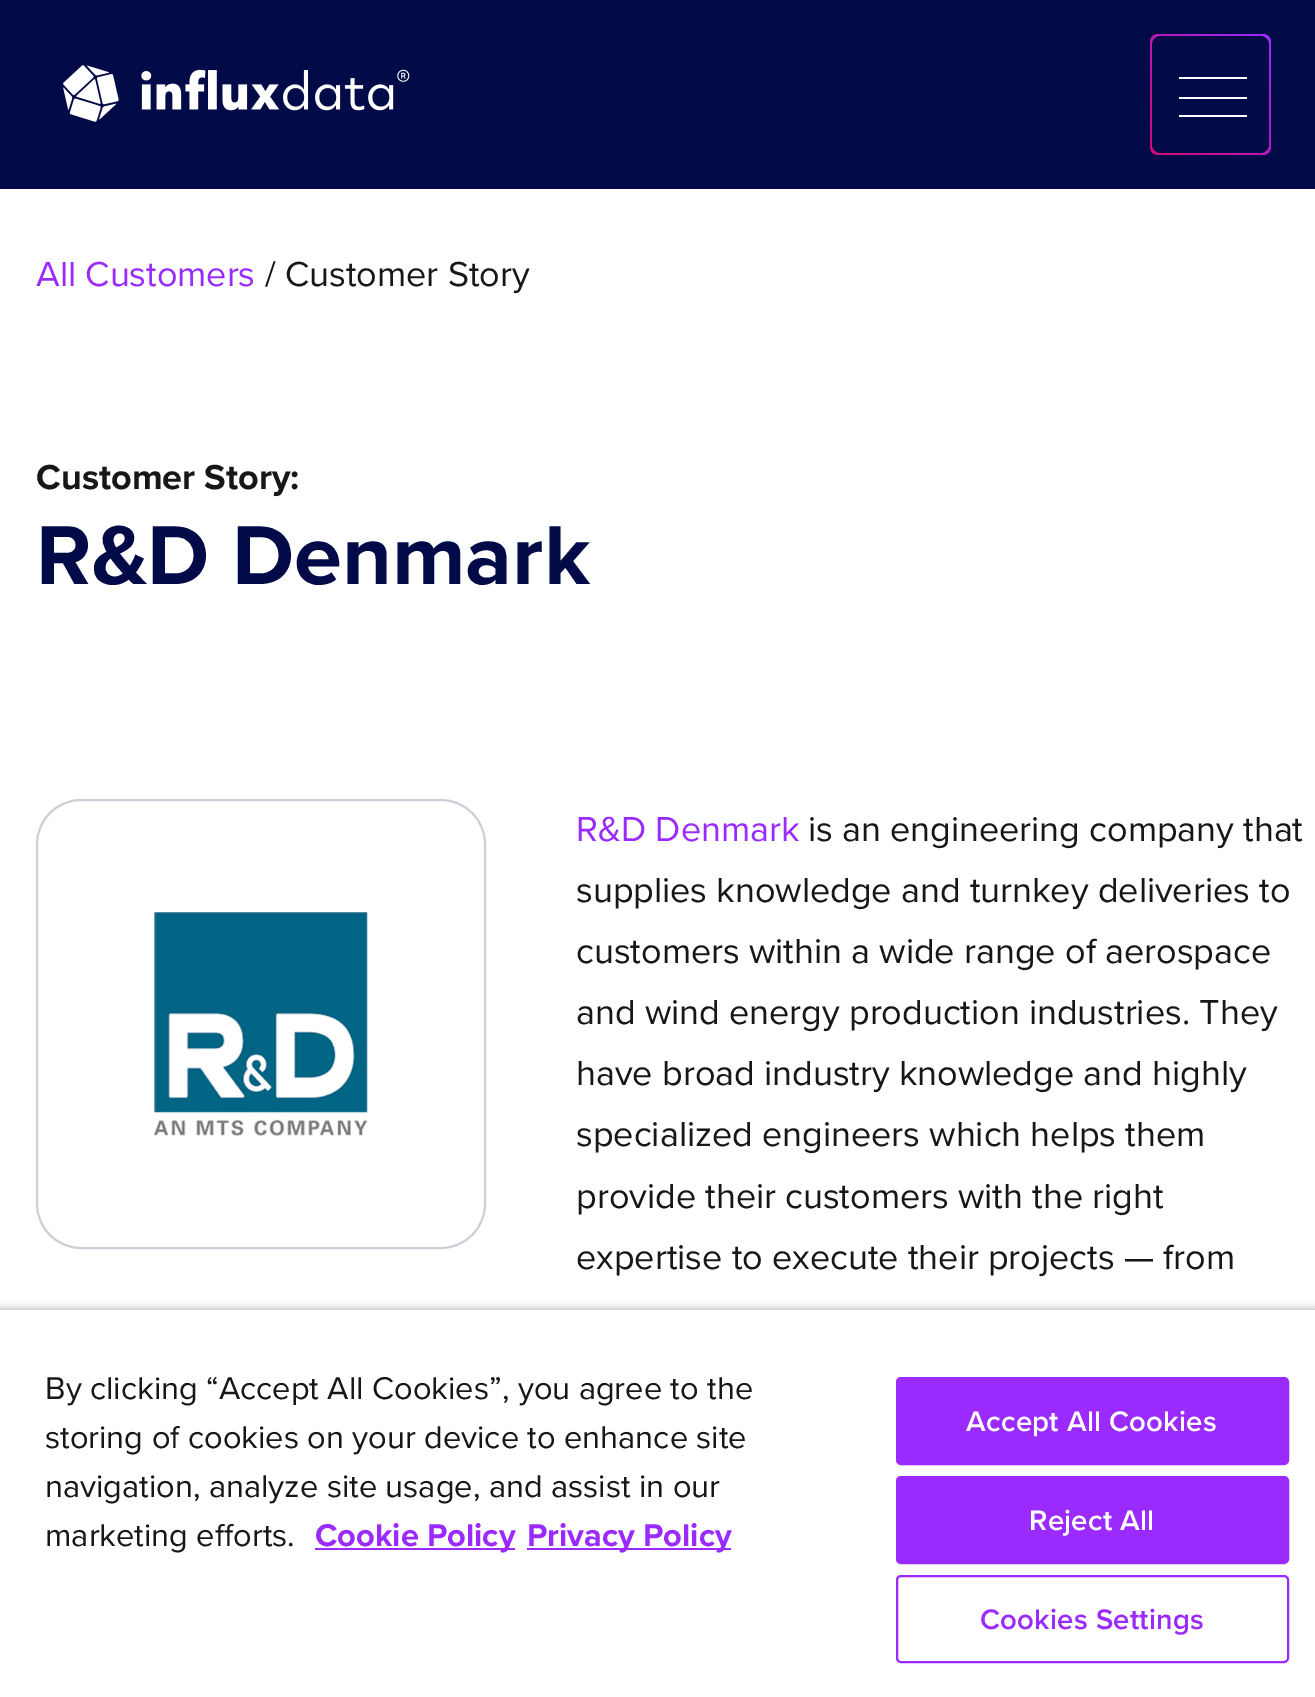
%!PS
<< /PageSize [1315 1697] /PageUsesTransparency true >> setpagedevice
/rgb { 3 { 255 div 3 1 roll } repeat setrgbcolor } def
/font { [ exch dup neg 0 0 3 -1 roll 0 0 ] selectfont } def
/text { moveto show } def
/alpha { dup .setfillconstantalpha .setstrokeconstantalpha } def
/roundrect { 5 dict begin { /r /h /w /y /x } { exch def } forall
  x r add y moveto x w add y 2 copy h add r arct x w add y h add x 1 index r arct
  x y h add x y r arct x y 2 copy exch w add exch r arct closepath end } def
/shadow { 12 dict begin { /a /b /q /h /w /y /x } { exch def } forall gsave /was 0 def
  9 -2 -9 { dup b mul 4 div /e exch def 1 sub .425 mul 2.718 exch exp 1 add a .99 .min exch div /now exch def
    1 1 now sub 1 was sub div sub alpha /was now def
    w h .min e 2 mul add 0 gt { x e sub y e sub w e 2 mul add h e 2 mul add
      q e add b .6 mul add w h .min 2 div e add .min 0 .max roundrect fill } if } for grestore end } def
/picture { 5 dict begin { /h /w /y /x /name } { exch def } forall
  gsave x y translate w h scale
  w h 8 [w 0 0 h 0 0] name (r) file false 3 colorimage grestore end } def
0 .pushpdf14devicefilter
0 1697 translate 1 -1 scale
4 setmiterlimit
255 255 255 rgb
0 0 1315 1697 rectfill
2 10 71 rgb
0 0 1315 189 rectfill
(img_01.rgb) 63 65 347 57 picture
gsave 1150 34 121 121 9 roundrect clip newpath
<< /ShadingType 2 /ColorSpace /DeviceRGB /Coords [1150 155 1271 34] /Extend [true true] /Function << /FunctionType 2 /Domain [0 1] /C0 [0.827 0.035 0.443] /C1 [0.608 0.165 1] /N 1 >> >> shfill grestore
1152 36 117 117 9 roundrect fill
255 255 255 rgb
1179 77 68 2 rectfill
1179 97 68 2 rectfill
1179 115 68 2 rectfill
205 207 214 rgb
2 setlinewidth
37 800 448 448 44 roundrect stroke
(img_02.rgb) 154 912 214 224 picture
0 0 0 rgb
0 1310 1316 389 0 4.5 0.35 shadow
255 255 255 rgb
0 1310 1315 387 rectfill
155 42 255 rgb
315 1548 200 2 rectfill
527 1548 204 2 rectfill
897 1378 391 86 4 roundrect gsave fill grestore
stroke
897 1477 391 86 4 roundrect gsave fill grestore
stroke
897 1576 391 86 4 roundrect stroke
/ProximaNova-Regular 36 font
(All Customers) 36 286 text
23 23 23 rgb
(/ Customer Story) 265 286 text
/ProximaNova-Bold 36 font
(Customer Story:) 36 489 text
/ProximaNova-Bold 86.5 font
2 10 71 rgb
(R&D Denmark) 36 584 text
/ProximaNova-Regular 36 font
155 42 255 rgb
(R&D Denmark) 576 841 text
23 23 23 rgb
(is an engineering company that) 808 841 text
(supplies knowledge and turnkey deliveries to) 576 902 text
(customers within a wide range of aerospace) 576 963 text
(and wind energy production industries. They) 576 1024 text
(have broad industry knowledge and highly) 576 1085 text
(specialized engineers which helps them) 576 1146 text
(provide their customers with the right) 576 1208 text
(expertise to execute their projects — from) 576 1269 text
/ProximaNova-Regular 32.6 font
(By clicking “Accept All Cookies”, you agree to the) 45 1399 text
(storing of cookies on your device to enhance site) 45 1448 text
(navigation, analyze site usage, and assist in our) 45 1497 text
(marketing efforts.) 45 1546 text
/ProximaNova-Bold 32.6 font
155 42 255 rgb
(Cookie Policy) 315 1546 text
(Privacy Policy) 527 1546 text
/ProximaNova-SemiBold 29.25 font
255 255 255 rgb
966 1431 moveto 0.25 0 (Accept All Cookies) ashow
1029 1530 moveto 0.25 0 (Reject All) ashow
155 42 255 rgb
980 1629 moveto 0.25 0 (Cookies Settings) ashow
.poppdf14devicefilter showpage
